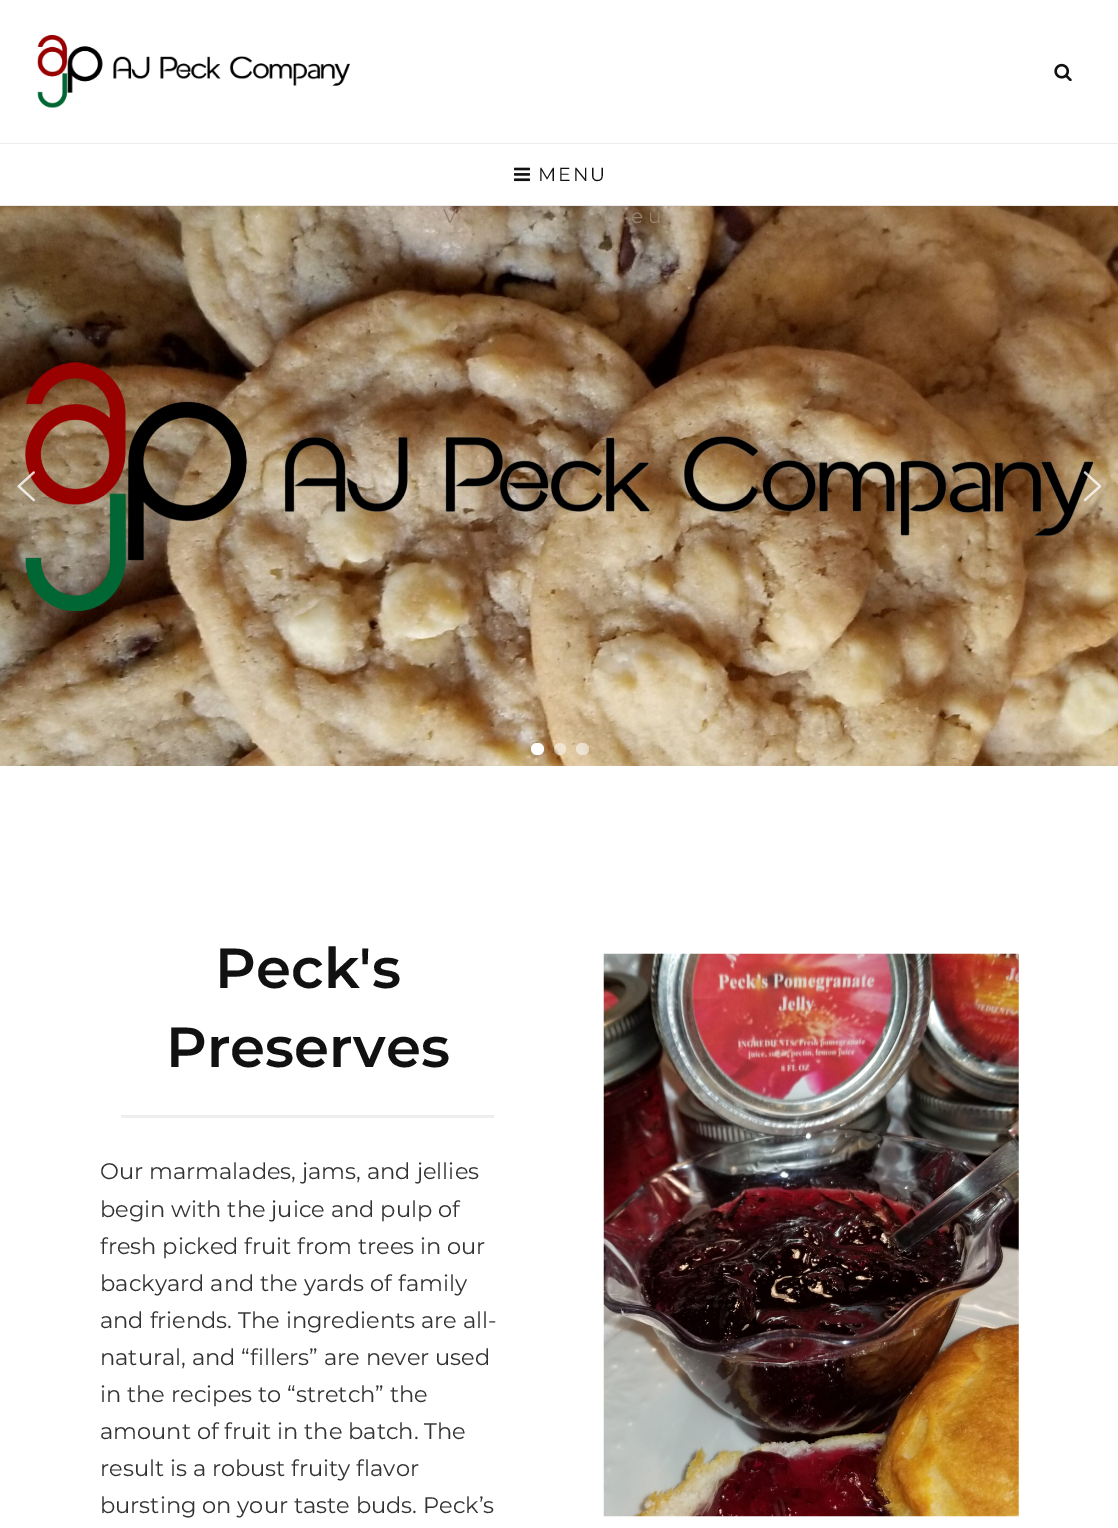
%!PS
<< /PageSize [1118 1528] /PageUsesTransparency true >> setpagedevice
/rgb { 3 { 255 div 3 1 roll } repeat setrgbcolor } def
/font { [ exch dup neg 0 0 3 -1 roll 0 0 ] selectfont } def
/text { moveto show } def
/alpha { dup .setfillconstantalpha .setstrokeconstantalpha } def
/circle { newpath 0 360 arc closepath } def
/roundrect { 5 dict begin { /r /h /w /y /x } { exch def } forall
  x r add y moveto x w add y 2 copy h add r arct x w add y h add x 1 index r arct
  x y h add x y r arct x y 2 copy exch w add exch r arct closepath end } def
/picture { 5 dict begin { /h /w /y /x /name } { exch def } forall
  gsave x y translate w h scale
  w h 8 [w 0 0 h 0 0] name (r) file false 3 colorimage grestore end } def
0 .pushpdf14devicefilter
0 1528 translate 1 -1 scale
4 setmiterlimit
255 255 255 rgb
0 0 1118 1528 rectfill
(img_01.rgb) 37 35 313 73 picture
(img_02.rgb) 1054 63 18 18 picture
236 236 236 rgb
0 143 1118 1 rectfill
0 205 1118 1 rectfill
(img_03.rgb) 513 167 18 15 picture
(img_04.rgb) 0 206 1118 560 picture
(img_05.rgb) 25 362 1069 249 picture
(img_06.rgb) 17 471 18 31 picture
(img_07.rgb) 1083 471 19 31 picture
255 255 255 rgb
531 743 13 12 6 roundrect fill
0.5 alpha
560 749 6 circle fill
576 743 13 12 6 roundrect fill
1 alpha
238 238 238 rgb
121 1115 373 3 rectfill
(img_08.rgb) 603 953 416 564 picture
/Montserrat-Regular 19 font
17 17 17 rgb
538 181 moveto 2 0 (MENU) ashow
/Montserrat-Regular 20 font
151 131 109 rgb
(V) 443 223 text
(e u) 631 223 text
/Montserrat-SemiBold 56.25 font
17 17 17 rgb
(Peck's) 215 988 text
(Preserves) 166 1067 text
/Montserrat-Regular 22.5 font
51 51 51 rgb
(Our marmalades, jams, and jellies) 100 1179 text
(begin with the juice and pulp of) 100 1217 text
(fresh picked fruit from trees in our) 100 1254 text
(backyard and the yards of family) 100 1291 text
(and friends. The ingredients are all-) 100 1328 text
(natural, and “fillers” are never used) 100 1365 text
(in the recipes to “stretch” the) 100 1402 text
(amount of fruit in the batch. The) 100 1439 text
(result is a robust fruity flavor) 100 1476 text
(bursting on your taste buds. Peck’s) 100 1513 text
.poppdf14devicefilter showpage
